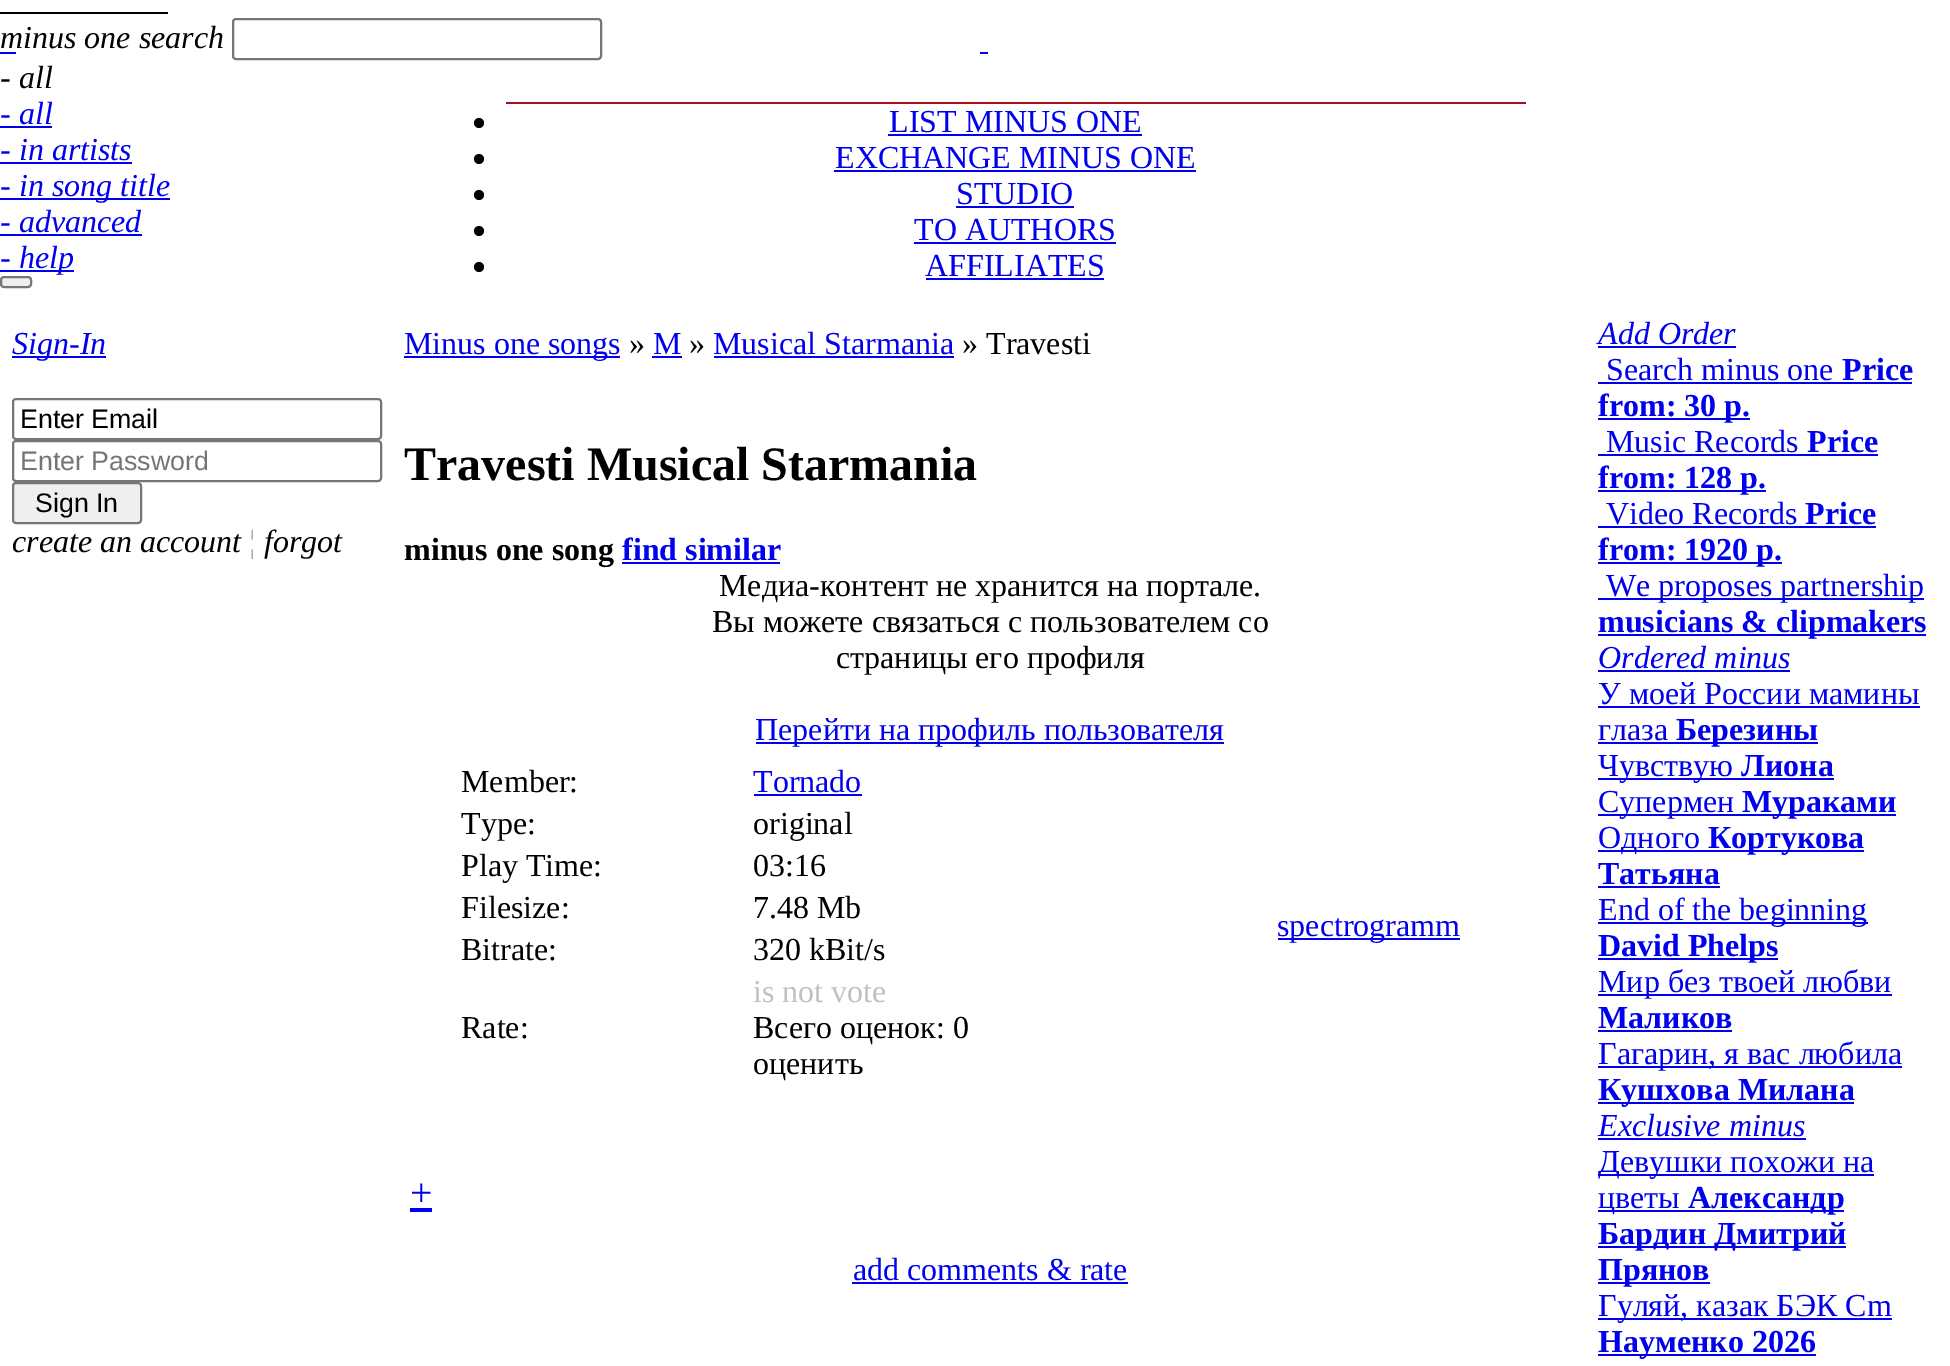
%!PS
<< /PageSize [1950 1366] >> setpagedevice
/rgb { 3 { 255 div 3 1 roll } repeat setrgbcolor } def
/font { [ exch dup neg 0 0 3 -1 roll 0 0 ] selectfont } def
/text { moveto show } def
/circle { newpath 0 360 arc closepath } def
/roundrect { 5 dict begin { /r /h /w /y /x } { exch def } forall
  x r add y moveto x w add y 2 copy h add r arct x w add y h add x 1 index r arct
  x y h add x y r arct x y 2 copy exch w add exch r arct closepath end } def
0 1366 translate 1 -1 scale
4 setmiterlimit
255 255 255 rgb
0 0 1950 1366 rectfill
0 0 0 rgb
0 12 168 2 rectfill
118 118 118 rgb
2 setlinewidth
233 19 368 40 3 roundrect stroke
0 0 238 rgb
0 126 52 2 rectfill
0 162 132 2 rectfill
0 198 170 2 rectfill
0 234 142 2 rectfill
0 270 74 2 rectfill
239 239 239 rgb
1 277 30 10 3 roundrect gsave fill grestore
118 118 118 rgb
stroke
0 0 238 rgb
0 52 16 2 rectfill
980 52 8 2 rectfill
168 15 26 rgb
506 102 1020 2 rectfill
0 0 0 rgb
479 123 5 circle fill
0 0 238 rgb
888 134 254 2 rectfill
0 0 0 rgb
479 159 5 circle fill
0 0 238 rgb
834 170 362 2 rectfill
0 0 0 rgb
479 195 5 circle fill
0 0 238 rgb
956 206 118 2 rectfill
0 0 0 rgb
479 231 5 circle fill
0 0 238 rgb
914 242 202 2 rectfill
0 0 0 rgb
479 267 5 circle fill
0 0 238 rgb
926 278 178 2 rectfill
12 356 94 2 rectfill
118 118 118 rgb
13 399 368 40 3 roundrect stroke
13 441 368 40 3 roundrect stroke
239 239 239 rgb
13 483 128 40 3 roundrect gsave fill grestore
118 118 118 rgb
stroke
0 0 238 rgb
404 356 216 2 rectfill
652 356 30 2 rectfill
714 356 240 2 rectfill
622 562 158 2 rectfill
756 742 468 2 rectfill
754 794 108 2 rectfill
1278 938 182 2 rectfill
410 1208 22 4 rectfill
852 1282 276 2 rectfill
1598 346 138 2 rectfill
1598 382 314 2 rectfill
1598 418 152 2 rectfill
1598 454 280 2 rectfill
1598 490 168 2 rectfill
1598 526 278 2 rectfill
1598 562 184 2 rectfill
1598 598 326 2 rectfill
1598 634 328 2 rectfill
1598 670 192 2 rectfill
1598 706 322 2 rectfill
1598 742 220 2 rectfill
1598 778 236 2 rectfill
1598 814 298 2 rectfill
1598 850 266 2 rectfill
1598 886 122 2 rectfill
1598 922 270 2 rectfill
1598 958 180 2 rectfill
1598 994 294 2 rectfill
1598 1030 134 2 rectfill
1598 1066 304 2 rectfill
1598 1102 256 2 rectfill
1598 1138 208 2 rectfill
1598 1174 276 2 rectfill
1598 1210 246 2 rectfill
1598 1246 248 2 rectfill
1598 1282 112 2 rectfill
1598 1318 294 2 rectfill
1598 1354 218 2 rectfill
/LiberationSerif-Italic 32 font
0 0 0 rgb
(minus one search) 0 48 text
(- all) 0 88 text
0 0 238 rgb
(- all) 0 124 text
(- in artists) 0 160 text
(- in song title) 0 196 text
(- advanced) 0 232 text
(- help) 0 268 text
/LiberationSerif-Regular 32 font
(LIST MINUS ONE) 889 132 text
(EXCHANGE MINUS ONE) 835 168 text
(STUDIO) 956 204 text
(TO AUTHORS) 914 240 text
(AFFILIATES) 925 276 text
/LiberationSerif-Italic 32 font
(Sign-In) 12 354 text
/LiberationSans-Regular 26.75 font
0 0 0 rgb
(Enter Email) 20 428 text
117 117 117 rgb
(Enter Password) 20 470 text
0 0 0 rgb
(Sign In) 35 512 text
/LiberationSerif-Italic 32 font
(create an account) 12 552 text
/LiberationSerif-Regular 32 font
170 170 170 rgb
(¦) 249 552 text
/LiberationSerif-Italic 32 font
0 0 0 rgb
(forgot) 264 552 text
/LiberationSerif-Regular 32 font
0 0 238 rgb
(Minus one songs) 404 354 text
0 0 0 rgb
(») 629 354 text
0 0 238 rgb
(M) 653 354 text
0 0 0 rgb
(») 689 354 text
0 0 238 rgb
(Musical Starmania) 713 354 text
0 0 0 rgb
(» Travesti) 962 354 text
/LiberationSerif-Bold 48 font
(Travesti Musical Starmania) 404 480 text
/LiberationSerif-Bold 32 font
(minus one song) 404 560 text
0 0 238 rgb
(find similar) 622 560 text
/LiberationSerif-Regular 32 font
0 0 0 rgb
(Медиа-контент не хранится на портале.) 719 596 text
(Вы можете связаться с пользователем со) 712 632 text
(страницы его профиля) 836 668 text
0 0 238 rgb
(Перейти на профиль пользователя) 755 740 text
0 0 0 rgb
(Member:) 461 792 text
0 0 238 rgb
(Tornado) 753 792 text
0 0 0 rgb
(Type:) 461 834 text
(original) 753 834 text
0 0 238 rgb
(spectrogramm) 1277 936 text
0 0 0 rgb
(Play Time:) 461 876 text
(03:16) 753 876 text
(Filesize:) 461 918 text
(7.48 Mb) 753 918 text
(Bitrate:) 461 960 text
(320 kBit/s) 753 960 text
(Rate:) 461 1038 text
192 192 192 rgb
(is not vote) 753 1002 text
0 0 0 rgb
(Всего оценок: 0) 753 1038 text
(оценить) 753 1074 text
/LiberationSerif-Regular 40 font
0 0 238 rgb
(+) 410 1206 text
/LiberationSerif-Regular 32 font
(add comments & rate) 853 1280 text
/LiberationSerif-Italic 32 font
(Add Order) 1598 344 text
/LiberationSerif-Regular 32 font
(Search minus one) 1606 380 text
/LiberationSerif-Bold 32 font
(Price) 1842 380 text
(from: 30 р.) 1598 416 text
/LiberationSerif-Regular 32 font
(Music Records) 1606 452 text
/LiberationSerif-Bold 32 font
(Price) 1807 452 text
(from: 128 р.) 1598 488 text
/LiberationSerif-Regular 32 font
(Video Records) 1606 524 text
/LiberationSerif-Bold 32 font
(Price) 1805 524 text
(from: 1920 р.) 1598 560 text
/LiberationSerif-Regular 32 font
(We proposes partnership) 1606 596 text
/LiberationSerif-Bold 32 font
(musicians & clipmakers) 1598 632 text
/LiberationSerif-Italic 32 font
(Ordered minus) 1598 668 text
/LiberationSerif-Regular 32 font
(У моей России мамины) 1598 704 text
(глаза) 1598 740 text
/LiberationSerif-Bold 32 font
(Березины) 1676 740 text
/LiberationSerif-Regular 32 font
(Чувствую) 1598 776 text
/LiberationSerif-Bold 32 font
(Лиона) 1741 776 text
/LiberationSerif-Regular 32 font
(Супермен) 1598 812 text
/LiberationSerif-Bold 32 font
(Мураками) 1742 812 text
/LiberationSerif-Regular 32 font
(Одного) 1598 848 text
/LiberationSerif-Bold 32 font
(Кортукова) 1708 848 text
(Татьяна) 1598 884 text
/LiberationSerif-Regular 32 font
(End of the beginning) 1598 920 text
/LiberationSerif-Bold 32 font
(David Phelps) 1598 956 text
/LiberationSerif-Regular 32 font
(Мир без твоей любви) 1598 992 text
/LiberationSerif-Bold 32 font
(Маликов) 1598 1028 text
/LiberationSerif-Regular 32 font
(Гагарин, я вас любила) 1598 1064 text
/LiberationSerif-Bold 32 font
(Кушхова Милана) 1598 1100 text
/LiberationSerif-Italic 32 font
(Exclusive minus) 1598 1136 text
/LiberationSerif-Regular 32 font
(Девушки похожи на) 1598 1172 text
(цветы) 1598 1208 text
/LiberationSerif-Bold 32 font
(Александр) 1688 1208 text
(Бардин Дмитрий) 1598 1244 text
(Прянов) 1598 1280 text
/LiberationSerif-Regular 32 font
(Гуляй, казак БЭК Cm) 1598 1316 text
/LiberationSerif-Bold 32 font
(Науменко 2026) 1598 1352 text
showpage
